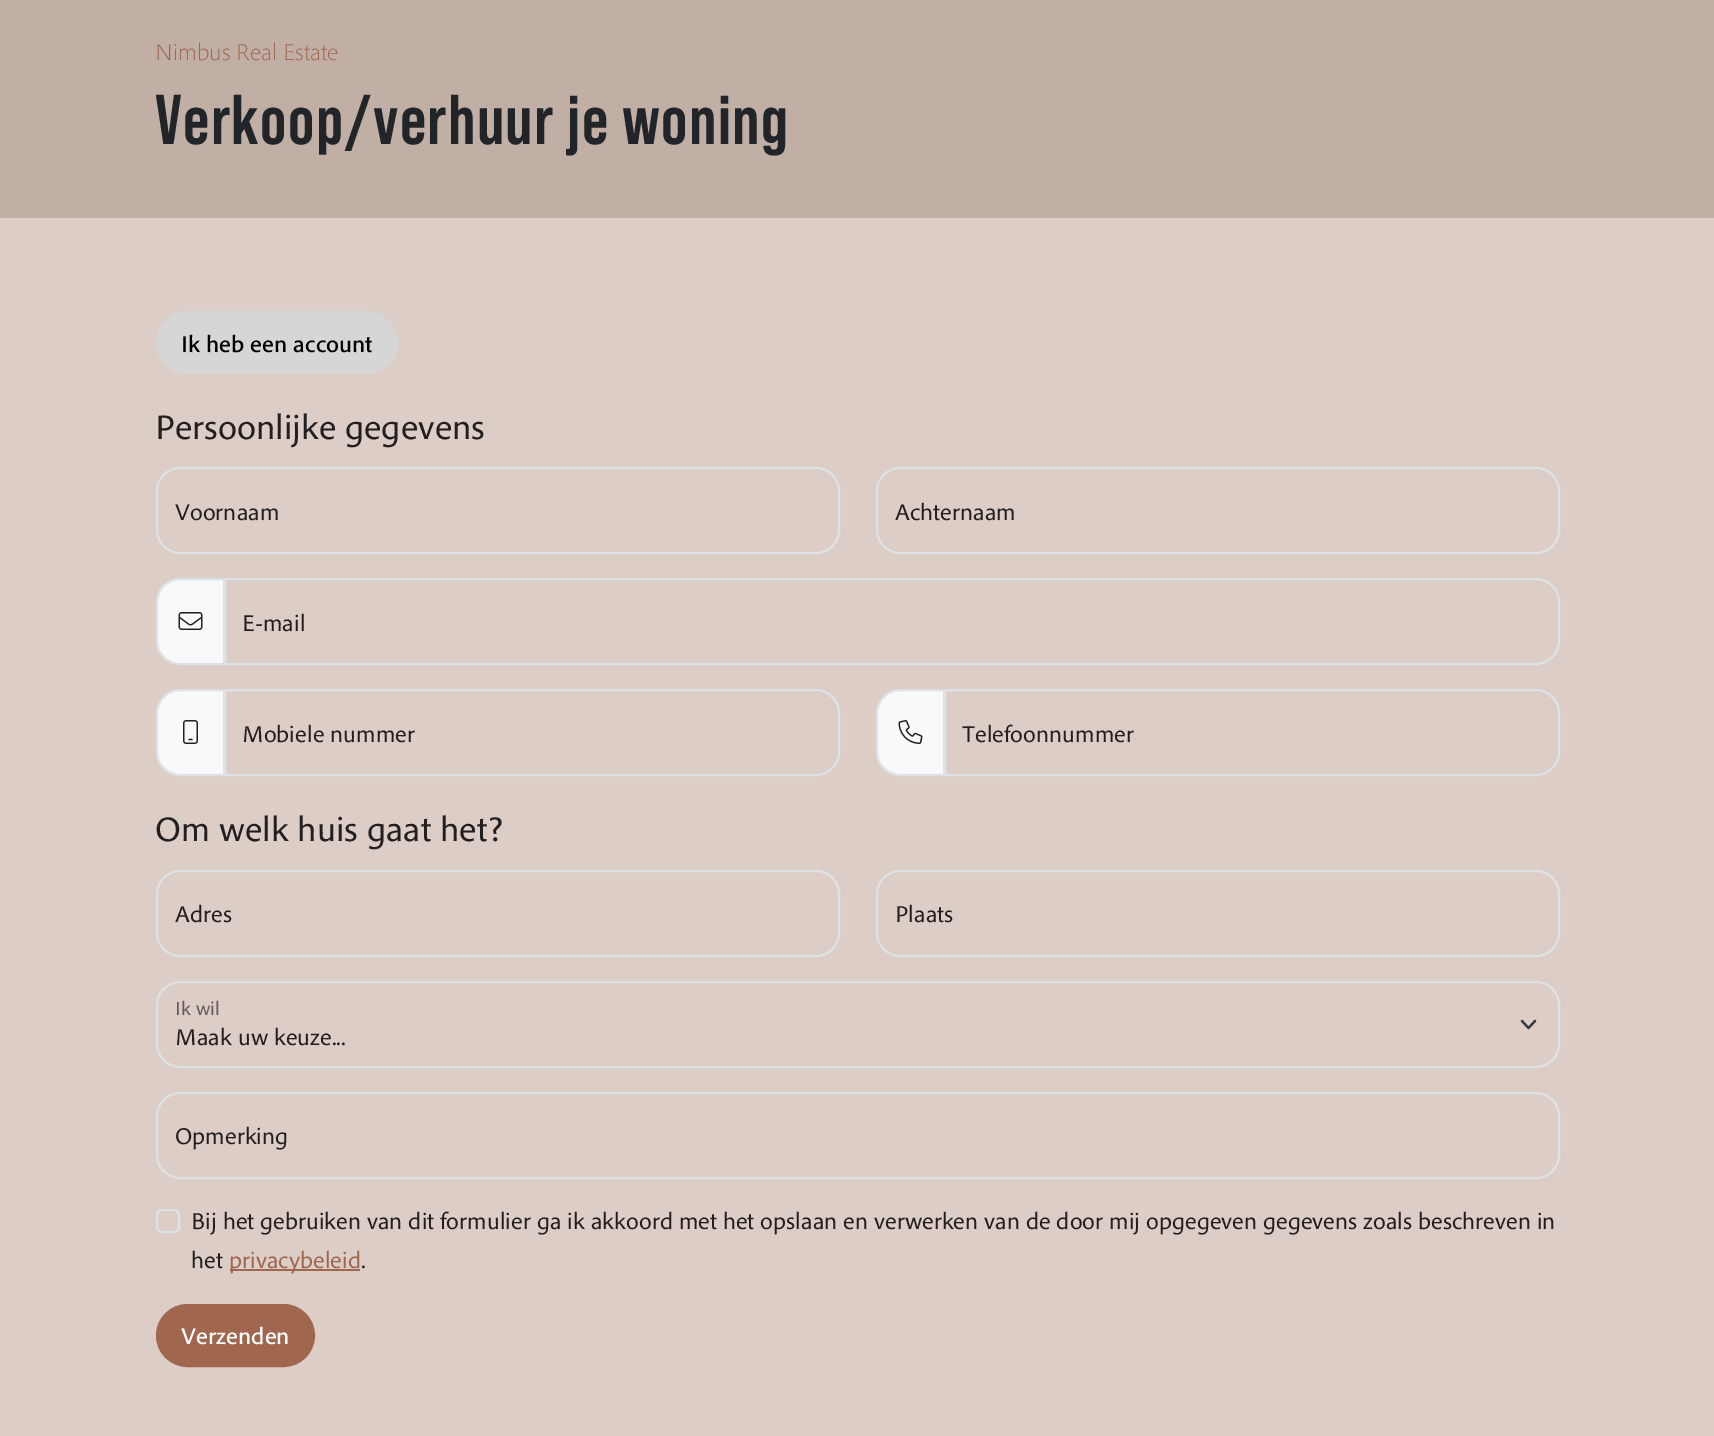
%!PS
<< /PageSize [1714 1436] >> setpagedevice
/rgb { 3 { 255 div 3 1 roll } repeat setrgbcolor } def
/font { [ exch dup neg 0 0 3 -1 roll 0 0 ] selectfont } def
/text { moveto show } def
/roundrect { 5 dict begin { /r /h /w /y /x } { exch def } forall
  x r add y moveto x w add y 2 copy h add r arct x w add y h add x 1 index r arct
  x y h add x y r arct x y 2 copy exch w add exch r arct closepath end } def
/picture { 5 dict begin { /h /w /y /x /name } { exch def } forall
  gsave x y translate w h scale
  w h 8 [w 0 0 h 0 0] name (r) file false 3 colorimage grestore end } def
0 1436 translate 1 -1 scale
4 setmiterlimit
220 206 199 rgb
0 0 1714 1436 rectfill
193 174 164 rgb
0 0 1714 218 rectfill
214 214 214 rgb
157 312 240 61 30.5 roundrect gsave fill grestore
2 setlinewidth
stroke
222 226 230 rgb
157 468 682 85 23 roundrect stroke
877 468 682 85 23 roundrect stroke
248 249 250 rgb
180 579 moveto 44 0 rlineto 0 85 rlineto -44 0 rlineto -12.5 0 -23 -10.5 -23 -23 rcurveto 0 -39 rlineto 0 -12.5 10.5 -23 23 -23 rcurveto closepath gsave fill grestore
222 226 230 rgb
stroke
(img_01.rgb) 178 612 25 18 picture
225 579 moveto 1311 0 rlineto 12.5 0 23 10.5 23 23 rcurveto 0 39 rlineto 0 12.5 -10.5 23 -23 23 rcurveto -1311 0 rlineto closepath stroke
248 249 250 rgb
180 690 moveto 44 0 rlineto 0 85 rlineto -44 0 rlineto -12.5 0 -23 -10.5 -23 -23 rcurveto 0 -39 rlineto 0 -12.5 10.5 -23 23 -23 rcurveto closepath gsave fill grestore
222 226 230 rgb
stroke
(img_02.rgb) 183 720 15 24 picture
225 690 moveto 591 0 rlineto 12.5 0 23 10.5 23 23 rcurveto 0 39 rlineto 0 12.5 -10.5 23 -23 23 rcurveto -591 0 rlineto closepath stroke
248 249 250 rgb
900 690 moveto 44 0 rlineto 0 85 rlineto -44 0 rlineto -12.5 0 -23 -10.5 -23 -23 rcurveto 0 -39 rlineto 0 -12.5 10.5 -23 23 -23 rcurveto closepath gsave fill grestore
222 226 230 rgb
stroke
(img_03.rgb) 898 720 25 24 picture
945 690 moveto 591 0 rlineto 12.5 0 23 10.5 23 23 rcurveto 0 39 rlineto 0 12.5 -10.5 23 -23 23 rcurveto -591 0 rlineto closepath stroke
157 871 682 85 23 roundrect stroke
877 871 682 85 23 roundrect stroke
52 58 64 rgb
2.2 setlinewidth
1 setlinecap
1 setlinejoin
1522 1021 moveto 6.5 7 rlineto 6.5 -7 rlineto stroke
222 226 230 rgb
2 setlinewidth
0 setlinecap
0 setlinejoin
157 982 1402 85 23 roundrect stroke
157 1093 1402 85 23 roundrect stroke
157 1210 22 22 5 roundrect stroke
160 102 78 rgb
230 1269 130 2 rectfill
157 1305 157 61 30.5 roundrect gsave fill grestore
stroke
/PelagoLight-Light 24 font
(Nimbus Real Estate) 155 60 text
/BebasNeue-Bold 70.25 font
33 37 41 rgb
155 144 moveto 1.4 0 (Verkoop/verhuur je woning) ashow
/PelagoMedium-Medium 24 font
0 0 0 rgb
(Ik heb een account) 181 352 text
/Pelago-Regular 35.75 font
35 31 32 rgb
(Persoonlijke gegevens) 155 439 text
/Pelago-Regular 24 font
(Voornaam) 175 520 text
(Achternaam) 895 520 text
(E-mail) 242 631 text
(Mobiele nummer) 242 742 text
(Telefoonnummer) 962 742 text
/Pelago-Regular 35.75 font
(Om welk huis gaat het?) 155 841 text
/Pelago-Regular 24 font
(Adres) 175 922 text
(Plaats) 895 922 text
/Pelago-Regular 20 font
100 92 90 rgb
(Ik wil) 175 1015 text
/Pelago-Regular 24 font
35 31 32 rgb
(Maak uw keuze...) 175 1045 text
(Opmerking) 175 1144 text
(Bij het gebruiken van dit formulier ga ik akkoord met het opslaan en verwerken van de door mij opgegeven gegevens zoals beschreven in) 191 1229 text
(het) 191 1268 text
160 102 78 rgb
(privacybeleid) 229 1268 text
35 31 32 rgb
(.) 361 1268 text
/PelagoMedium-Medium 24 font
255 255 255 rgb
(Verzenden) 181 1344 text
showpage
